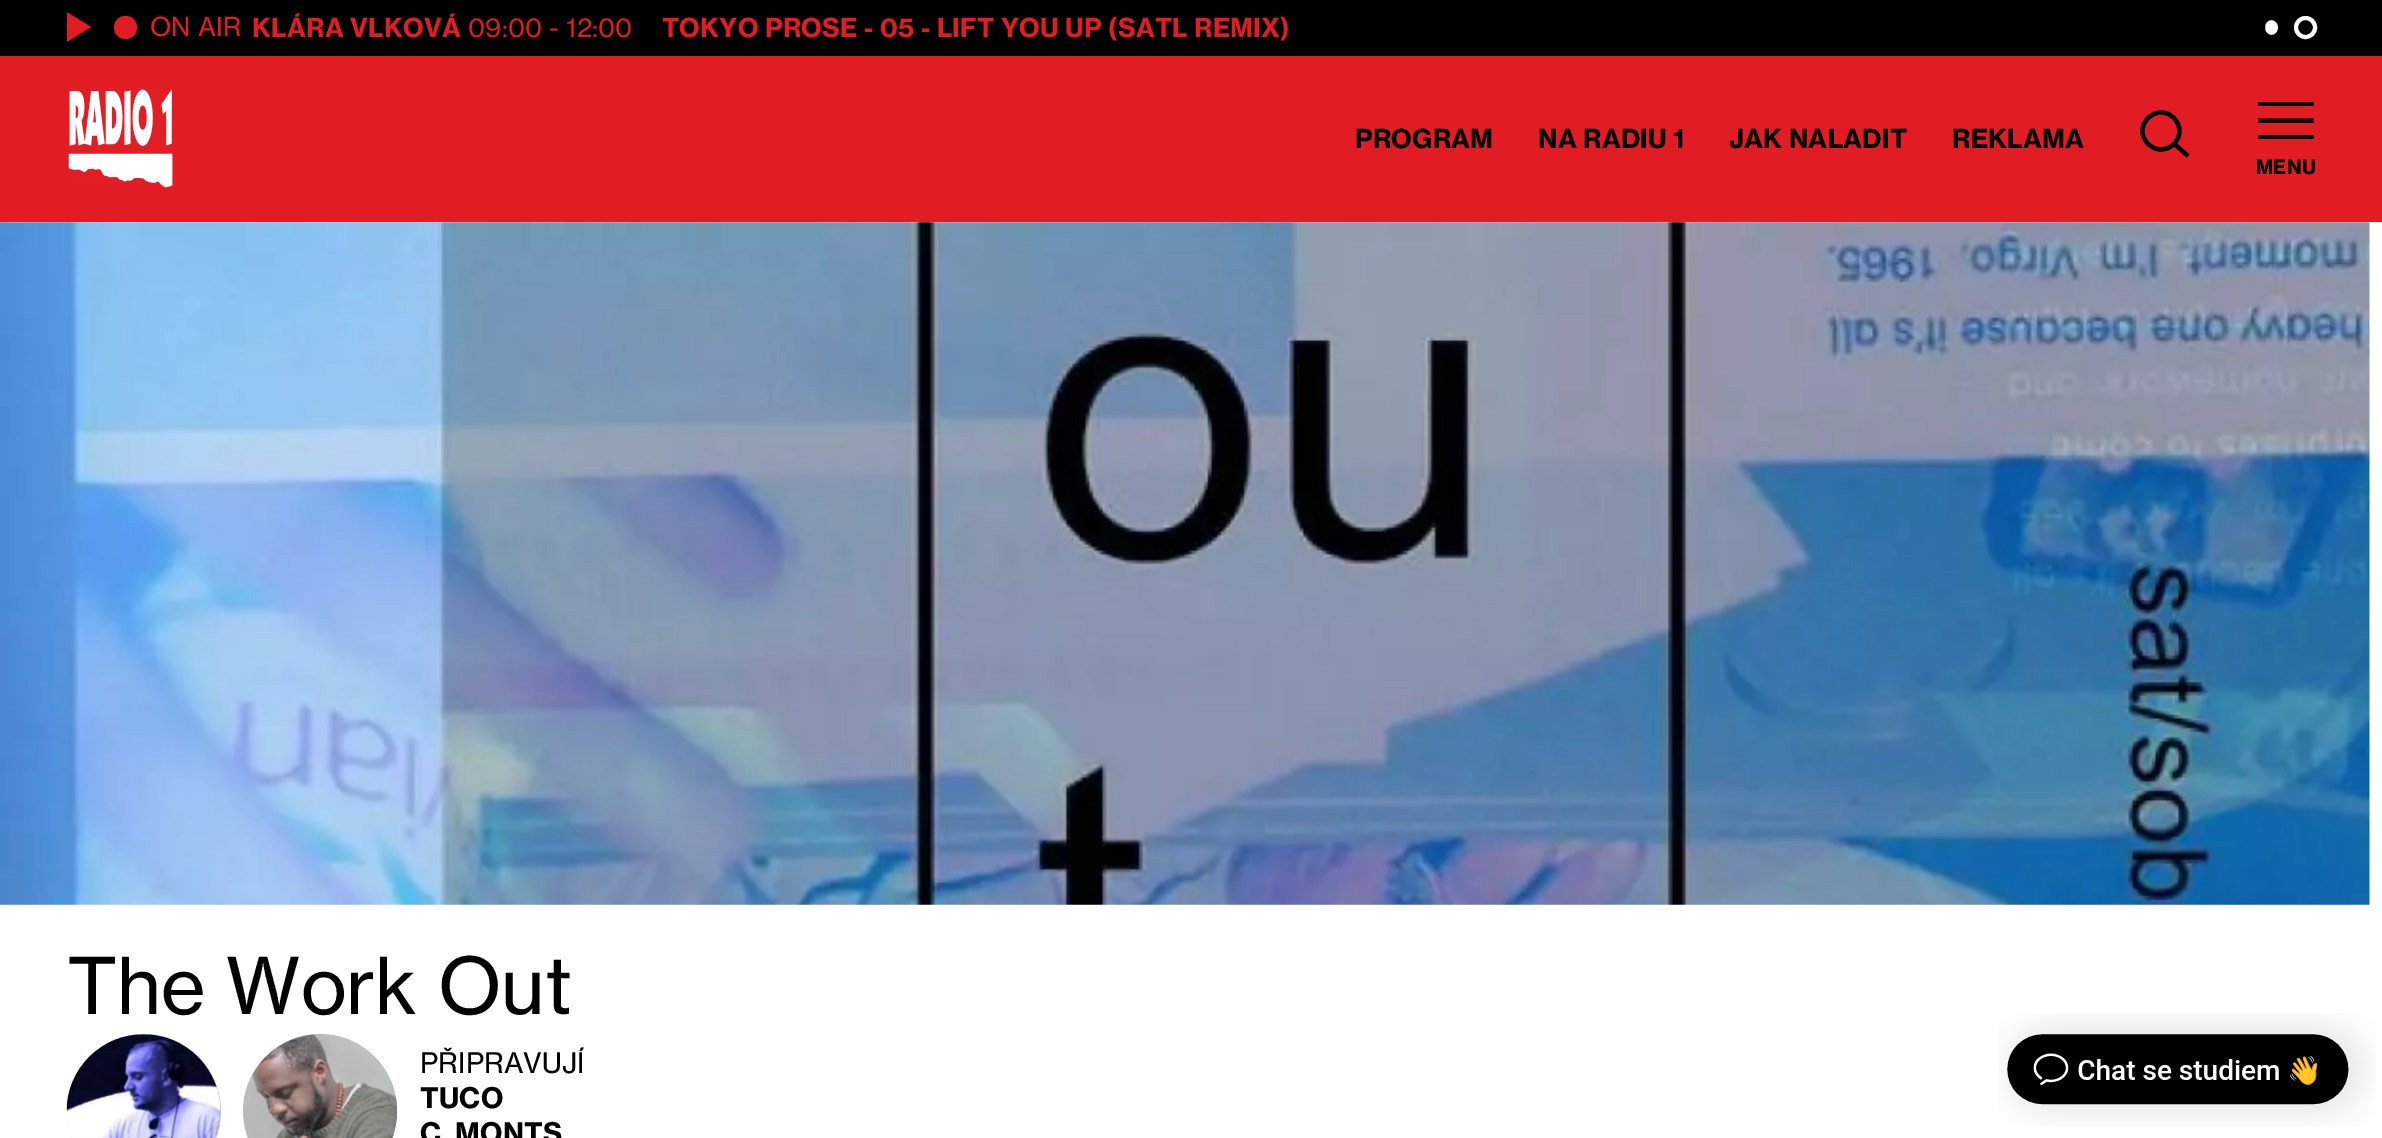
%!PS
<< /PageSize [2382 1138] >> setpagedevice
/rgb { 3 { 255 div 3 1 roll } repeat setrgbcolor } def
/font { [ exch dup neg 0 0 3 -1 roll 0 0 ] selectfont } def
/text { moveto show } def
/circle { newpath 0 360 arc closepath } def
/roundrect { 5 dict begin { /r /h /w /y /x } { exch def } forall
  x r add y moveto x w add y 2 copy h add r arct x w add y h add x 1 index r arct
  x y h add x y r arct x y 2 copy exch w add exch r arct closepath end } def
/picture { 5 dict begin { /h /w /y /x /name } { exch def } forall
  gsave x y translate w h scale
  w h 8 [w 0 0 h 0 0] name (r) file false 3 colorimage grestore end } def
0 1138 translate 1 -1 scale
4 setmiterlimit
255 255 255 rgb
0 0 2382 1138 rectfill
0 0 0 rgb
0 0 2382 56 rectfill
gsave
67 12 24 30 rectclip
226 28 35 rgb
91 27 moveto -24.5 15 rlineto 0 -30 rlineto closepath fill
grestore
226 28 35 rgb
125.5 27.5 11.5 circle fill
255 255 255 rgb
2263 18 17 19 8.5 roundrect gsave fill grestore
0 0 0 rgb
4 setlinewidth
stroke
255 255 255 rgb
2305.5 27.5 9.5 circle stroke
226 28 35 rgb
0 56 2382 166 rectfill
(img_01.rgb) 68 89 105 99 picture
0 0 0 rgb
4.2 setlinewidth
2161 131 18.5 circle stroke
2175 144.5 moveto 13 11.5 rlineto stroke
2258 102 56 4 rectfill
gsave
2258 98 56 46 rectclip
4.4 setlinewidth
2257.5 120.5 moveto 56 0 rlineto stroke
grestore
2258 135 56 4 rectfill
(img_02.rgb) 0 222 2370 683 picture
192 188 193 rgb
144 1111 77 circle fill
(img_03.rgb) 66 1034 155 104 picture
320 1111 77 circle fill
(img_04.rgb) 243 1034 155 104 picture
(img_05.rgb) 1998 1013 378 113 picture
/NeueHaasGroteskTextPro-Regular 25.75 font
226 28 35 rgb
150 36 moveto 0.2 0 (ON AIR) ashow
/NeueHaasGroteskTextPro-Bold 25.75 font
252 37 moveto 0.2 0 (KLÁRA VLKOVÁ) ashow
/NeueHaasGroteskTextPro-Regular 25.75 font
468 37 moveto 0.2 0 (09:00 - 12:00) ashow
/NeueHaasGroteskTextPro-Bold 25.75 font
662 37 moveto 0.2 0 (TOKYO PROSE - 05 - LIFT YOU UP \(SATL REMIX\)) ashow
0 0 0 rgb
1355 148 moveto 0.2 0 (PROGRAM) ashow
1538 148 moveto 0.2 0 (NA RADIU 1) ashow
1729 148 moveto 0.2 0 (JAK NALADIT) ashow
1952 148 moveto 0.2 0 (REKLAMA) ashow
/NeueHaasGroteskTextPro-Bold 19.5 font
2256 174 moveto 0.2 0 (MENU) ashow
/NeueHaasGroteskTextPro-Regular 77 font
(The Work Out) 67 1014 text
/NeueHaasGroteskTextPro-Regular 28 font
420 1073 moveto 0.2 0 (PŘIPRAVUJÍ) ashow
/NeueHaasGroteskTextPro-Bold 28 font
420 1108 moveto 0.2 0 (TUCO) ashow
420 1143 moveto 0.2 0 (C. MONTS) ashow
showpage
